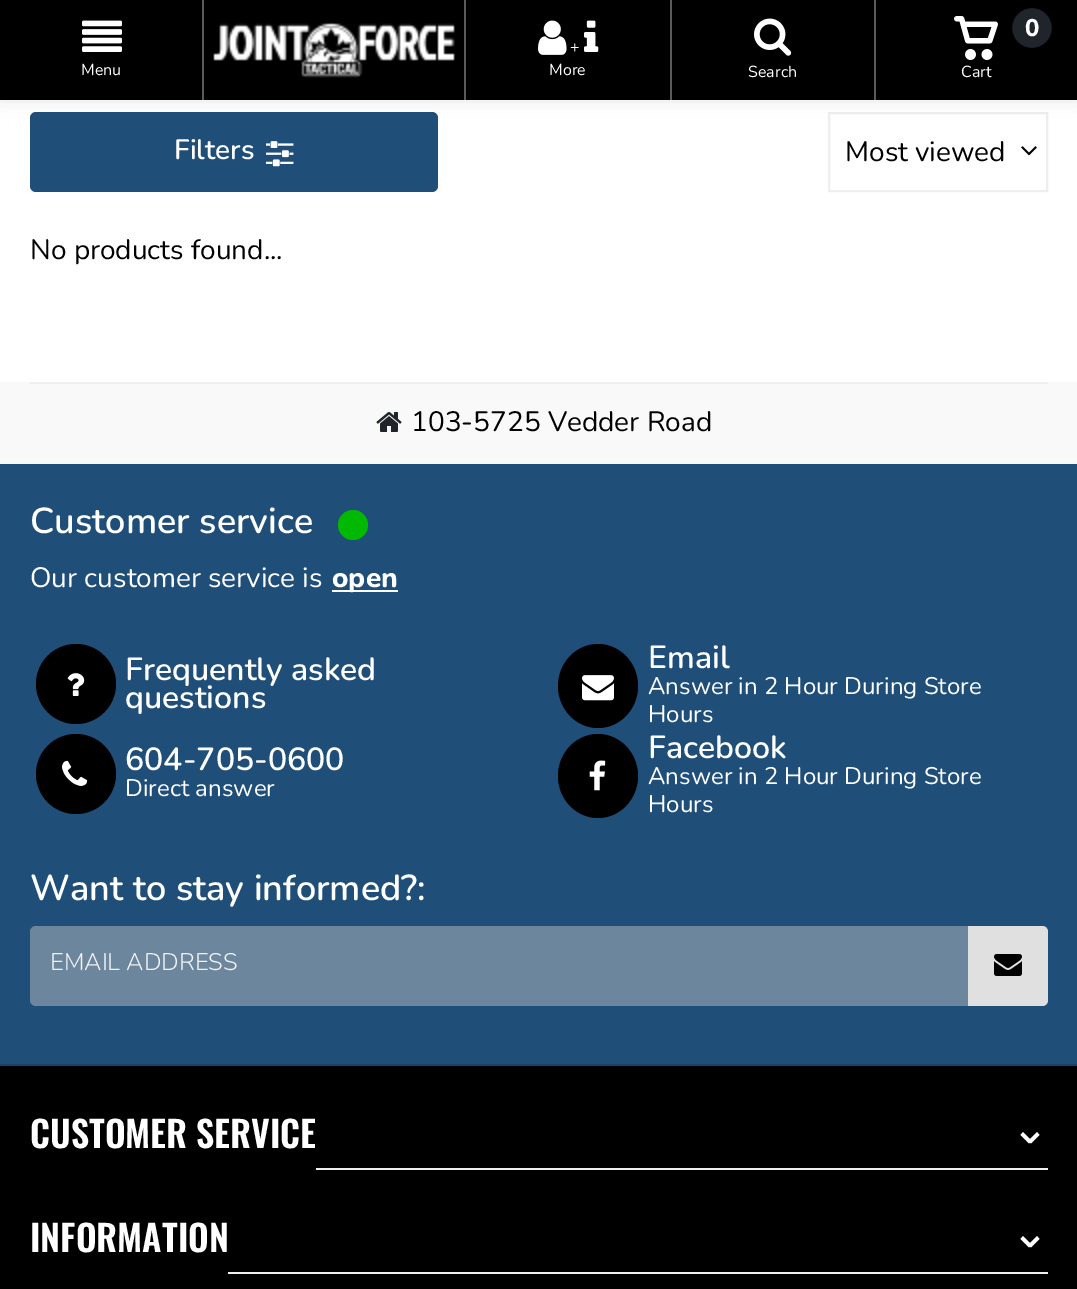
%!PS
<< /PageSize [1077 1289] /PageUsesTransparency true >> setpagedevice
/rgb { 3 { 255 div 3 1 roll } repeat setrgbcolor } def
/font { [ exch dup neg 0 0 3 -1 roll 0 0 ] selectfont } def
/text { moveto show } def
/alpha { dup .setfillconstantalpha .setstrokeconstantalpha } def
/circle { newpath 0 360 arc closepath } def
/roundrect { 5 dict begin { /r /h /w /y /x } { exch def } forall
  x r add y moveto x w add y 2 copy h add r arct x w add y h add x 1 index r arct
  x y h add x y r arct x y 2 copy exch w add exch r arct closepath end } def
/shadow { 12 dict begin { /a /b /q /h /w /y /x } { exch def } forall gsave /was 0 def
  9 -2 -9 { dup b mul 4 div /e exch def 1 sub .425 mul 2.718 exch exp 1 add a .99 .min exch div /now exch def
    1 1 now sub 1 was sub div sub alpha /was now def
    w h .min e 2 mul add 0 gt { x e sub y e sub w e 2 mul add h e 2 mul add
      q e add b .6 mul add w h .min 2 div e add .min 0 .max roundrect fill } if } for grestore end } def
/picture { 5 dict begin { /h /w /y /x /name } { exch def } forall
  gsave x y translate w h scale
  w h 8 [w 0 0 h 0 0] name (r) file false 3 colorimage grestore end } def
0 .pushpdf14devicefilter
0 1289 translate 1 -1 scale
4 setmiterlimit
255 255 255 rgb
0 0 1077 1289 rectfill
31 78 121 rgb
30 112 408 80 6 roundrect fill
238 238 238 rgb
2 setlinewidth
829 113 218 78 rectstroke
0 0 0 rgb
0 -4 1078 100 0 10 0.15 shadow
0 0 1077 100 rectfill
91 91 91 rgb
202 0 2 100 rectfill
(img_01.rgb) 82 20 40 32 picture
464 0 2 100 rectfill
(img_02.rgb) 213 22 242 56 picture
670 0 2 100 rectfill
(img_03.rgb) 538 20 29 35 picture
(img_04.rgb) 584 20 15 32 picture
874 0 2 100 rectfill
(img_05.rgb) 754 18 38 38 picture
(img_06.rgb) 954 16 44 44 picture
32 36 43 rgb
1032 28 23 circle gsave fill grestore
0 0 0 rgb
6 setlinewidth
stroke
(img_07.rgb) 266 141 28 26 picture
(img_08.rgb) 1021 146 16 10 picture
249 249 249 rgb
0 382 1077 82 rectfill
238 238 238 rgb
30 382 1018 2 rectfill
(img_09.rgb) 376 412 26 20 picture
31 78 121 rgb
0 464 1077 600 rectfill
0 185 0 rgb
353 525 15 circle fill
255 255 255 rgb
332 590 66 2 rectfill
0 0 0 rgb
76 684 40 circle fill
(img_10.rgb) 67 673 18 23 picture
598 644 moveto 22 0 40 19 40 42 rcurveto 0 23 -18 42 -40 42 rcurveto -22 0 -40 -19 -40 -42 rcurveto 0 -23 18 -42 40 -42 rcurveto closepath fill
(img_11.rgb) 582 675 32 26 picture
76 774 40 circle fill
(img_12.rgb) 62 760 26 26 picture
598 734 moveto 22 0 40 19 40 42 rcurveto 0 23 -18 42 -40 42 rcurveto -22 0 -40 -19 -40 -42 rcurveto 0 -23 18 -42 40 -42 rcurveto closepath fill
(img_13.rgb) 589 760 17 31 picture
108 134 158 rgb
30 926 1018 80 6 roundrect fill
224 224 224 rgb
968 926 moveto 74 0 rlineto 3.5 0 6 2.5 6 6 rcurveto 0 68 rlineto 0 3.5 -2.5 6 -6 6 rcurveto -74 0 rlineto closepath fill
(img_14.rgb) 994 954 28 22 picture
26 66 103 rgb
0 1064 1077 2 rectfill
0 0 0 rgb
0 1066 1077 223 rectfill
238 238 238 rgb
316 1168 732 2 rectfill
255 255 255 rgb
1023 1132 moveto 8.5 8.5 rlineto -2.5 3 rlineto -8.5 -8.5 rlineto closepath fill
1028.5 1140.5 moveto 8.5 -8.5 rlineto 2.5 3 rlineto -8.5 8.5 rlineto closepath fill
238 238 238 rgb
228 1272 820 2 rectfill
255 255 255 rgb
1023 1236 moveto 8.5 8.5 rlineto -2.5 3 rlineto -8.5 -8.5 rlineto closepath fill
1028.5 1244.5 moveto 8.5 -8.5 rlineto 2.5 3 rlineto -8.5 8.5 rlineto closepath fill
/Nunito-Regular 16 font
(Menu) 81 75 text
(+) 570 52 text
(More) 549 75 text
(Search) 748 77 text
/Nunito-ExtraBold 24 font
(0) 1025 36 text
/Nunito-Regular 16 font
(Cart) 961 77 text
/Nunito-SemiBold 28 font
(Filters) 174 159 text
/Nunito-Regular 28 font
0 0 0 rgb
(Most viewed) 845 161 text
(No products found...) 30 259 text
(103-5725 Vedder Road) 411 431 text
/Nunito-SemiBold 36 font
255 255 255 rgb
(Customer service) 30 533 text
/Nunito-Regular 28 font
(Our customer service is) 30 587 text
/Nunito-ExtraBold 28 font
(open) 332 587 text
/Nunito-SemiBold 32 font
(Frequently asked) 125 680 text
(questions) 125 708 text
(Email) 648 668 text
/Nunito-Regular 24 font
(Answer in 2 Hour During Store) 648 694 text
(Hours) 648 722 text
/Nunito-SemiBold 32 font
(604-705-0600) 125 770 text
/Nunito-Regular 24 font
(Direct answer) 125 796 text
/Nunito-SemiBold 32 font
(Facebook) 648 758 text
/Nunito-Regular 24 font
(Answer in 2 Hour During Store) 648 784 text
(Hours) 648 812 text
/Nunito-SemiBold 36 font
(Want to stay informed?:) 30 900 text
/Nunito-Light 24 font
242 242 242 rgb
(EMAIL ADDRESS) 50 970 text
/Oswald-SemiBold 36 font
255 255 255 rgb
(CUSTOMER SERVICE) 30 1148 text
(INFORMATION) 30 1252 text
.poppdf14devicefilter showpage
